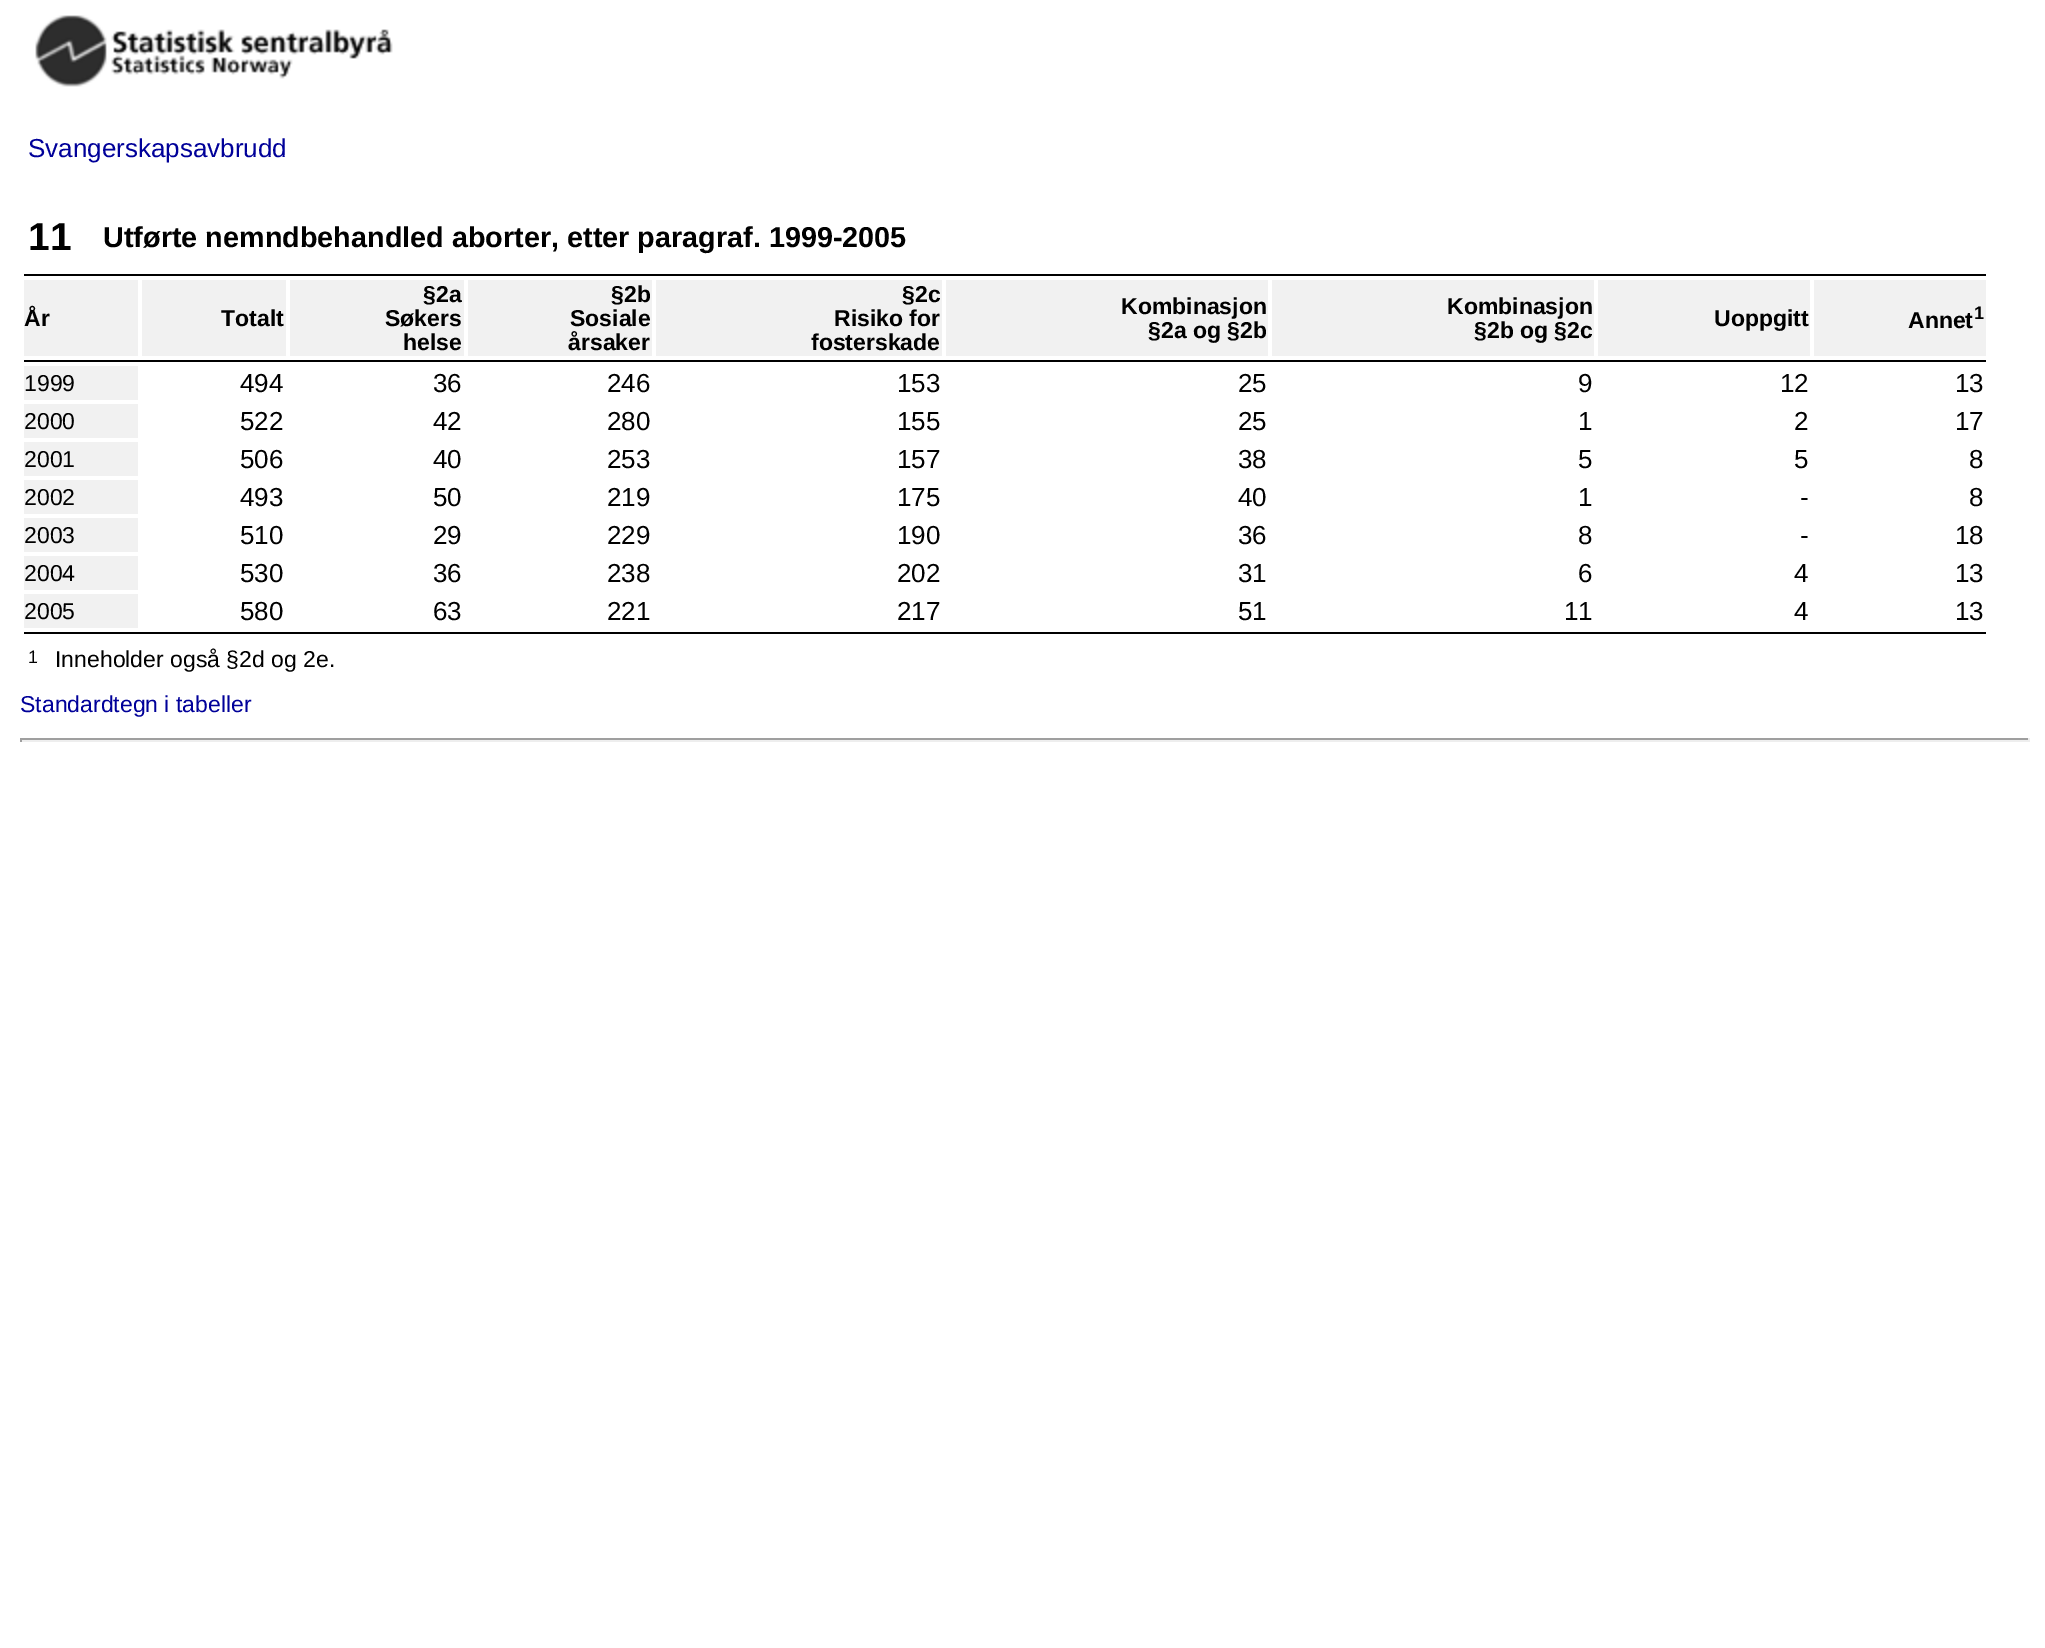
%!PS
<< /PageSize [2045 1648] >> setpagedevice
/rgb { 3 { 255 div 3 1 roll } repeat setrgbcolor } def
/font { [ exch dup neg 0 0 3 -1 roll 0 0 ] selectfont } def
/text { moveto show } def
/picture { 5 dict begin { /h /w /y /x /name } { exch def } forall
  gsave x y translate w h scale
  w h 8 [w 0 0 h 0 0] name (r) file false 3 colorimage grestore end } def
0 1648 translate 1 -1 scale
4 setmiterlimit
255 255 255 rgb
0 0 2045 1648 rectfill
(img_01.rgb) 35 15 358 72 picture
0 0 0 rgb
24 274 1962 2 rectfill
241 241 241 rgb
24 280 114 76 rectfill
142 280 144 76 rectfill
290 280 174 76 rectfill
468 280 184 76 rectfill
656 280 286 76 rectfill
946 280 322 76 rectfill
1272 280 322 76 rectfill
1598 280 212 76 rectfill
1814 280 172 76 rectfill
0 0 0 rgb
24 360 1962 2 rectfill
241 241 241 rgb
24 366 114 34 rectfill
24 404 114 34 rectfill
24 442 114 34 rectfill
24 480 114 34 rectfill
24 518 114 34 rectfill
24 556 114 34 rectfill
24 594 114 34 rectfill
0 0 0 rgb
24 632 1962 2 rectfill
159 159 159 rgb
20 738 2010 2 rectfill
238 238 238 rgb
2028 738 2 4 rectfill
20 740 2010 2 rectfill
159 159 159 rgb
20 738 2 4 rectfill
/LiberationSans-Regular 26 font
0 0 153 rgb
(Svangerskapsavbrudd) 28 157 text
/LiberationSans-Bold 39 font
0 0 0 rgb
(11) 28 250 text
/LiberationSans-Bold 28.8 font
(Utførte nemndbehandled aborter, etter paragraf. 1999-2005) 103 247 text
/LiberationSans-Bold 23 font
(År) 24 326 text
(Totalt) 221 326 text
(§2a) 423 302 text
(Søkers) 385 326 text
(helse) 403 350 text
(§2b) 611 302 text
(Sosiale) 570 326 text
(årsaker) 568 350 text
(§2c) 902 302 text
(Risiko for) 834 326 text
(fosterskade) 811 350 text
(Kombinasjon) 1121 314 text
(§2a og §2b) 1148 338 text
(Kombinasjon) 1447 314 text
(§2b og §2c) 1474 338 text
(Uoppgitt) 1714 326 text
(Annet) 1908 328 text
/LiberationSans-Bold 18 font
(1) 1974 319 text
/LiberationSans-Regular 23 font
(1999) 24 391 text
/LiberationSans-Regular 26 font
(494) 240 392 text
(36) 433 392 text
(246) 607 392 text
(153) 897 392 text
(25) 1238 392 text
(9) 1578 392 text
(12) 1780 392 text
(13) 1955 392 text
/LiberationSans-Regular 23 font
(2000) 24 429 text
/LiberationSans-Regular 26 font
(522) 240 430 text
(42) 433 430 text
(280) 607 430 text
(155) 897 430 text
(25) 1238 430 text
(1) 1578 430 text
(2) 1794 430 text
(17) 1955 430 text
/LiberationSans-Regular 23 font
(2001) 24 467 text
/LiberationSans-Regular 26 font
(506) 240 468 text
(40) 433 468 text
(253) 607 468 text
(157) 897 468 text
(38) 1238 468 text
(5) 1578 468 text
(5) 1794 468 text
(8) 1969 468 text
/LiberationSans-Regular 23 font
(2002) 24 505 text
/LiberationSans-Regular 26 font
(493) 240 506 text
(50) 433 506 text
(219) 607 506 text
(175) 897 506 text
(40) 1238 506 text
(1) 1578 506 text
(-) 1800 506 text
(8) 1969 506 text
/LiberationSans-Regular 23 font
(2003) 24 543 text
/LiberationSans-Regular 26 font
(510) 240 544 text
(29) 433 544 text
(229) 607 544 text
(190) 897 544 text
(36) 1238 544 text
(8) 1578 544 text
(-) 1800 544 text
(18) 1955 544 text
/LiberationSans-Regular 23 font
(2004) 24 581 text
/LiberationSans-Regular 26 font
(530) 240 582 text
(36) 433 582 text
(238) 607 582 text
(202) 897 582 text
(31) 1238 582 text
(6) 1578 582 text
(4) 1794 582 text
(13) 1955 582 text
/LiberationSans-Regular 23 font
(2005) 24 619 text
/LiberationSans-Regular 26 font
(580) 240 620 text
(63) 433 620 text
(221) 607 620 text
(217) 897 620 text
(51) 1238 620 text
(11) 1564 620 text
(4) 1794 620 text
(13) 1955 620 text
/LiberationSans-Regular 18 font
(1) 28 663 text
/LiberationSans-Regular 23 font
(Inneholder også §2d og 2e.) 55 667 text
0 0 153 rgb
(Standardtegn i tabeller) 20 712 text
showpage
